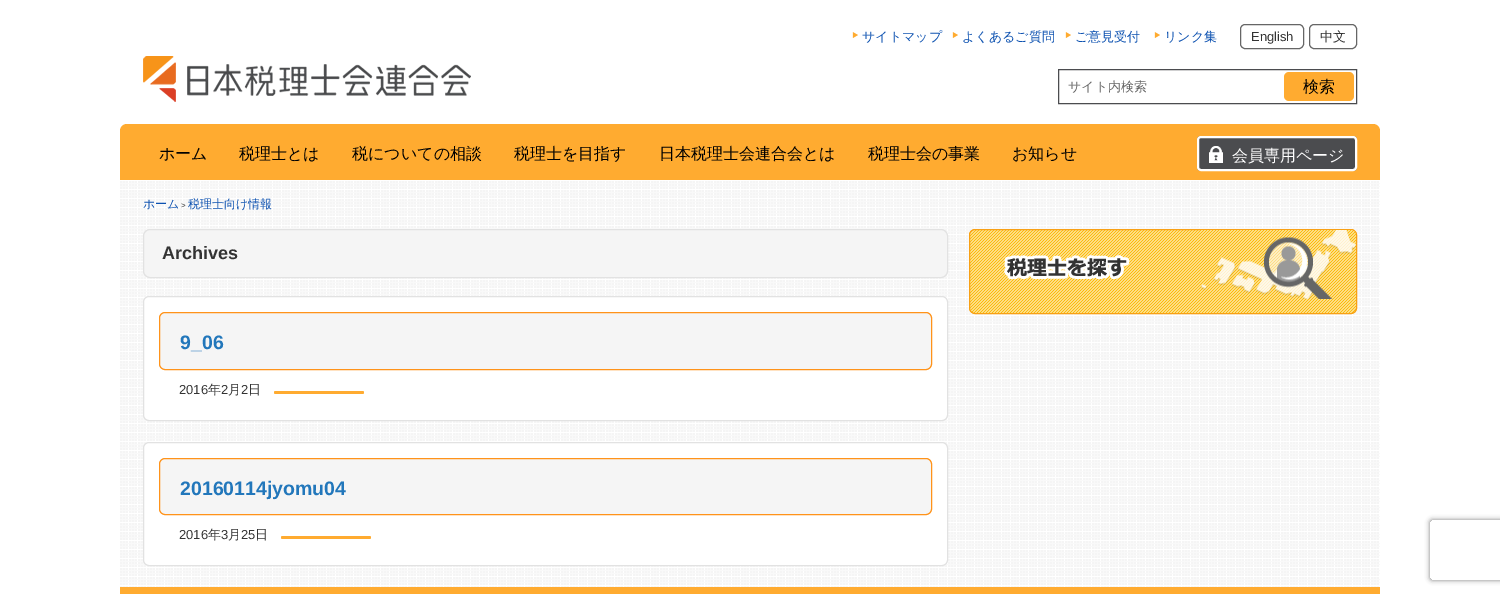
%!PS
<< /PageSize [1500 594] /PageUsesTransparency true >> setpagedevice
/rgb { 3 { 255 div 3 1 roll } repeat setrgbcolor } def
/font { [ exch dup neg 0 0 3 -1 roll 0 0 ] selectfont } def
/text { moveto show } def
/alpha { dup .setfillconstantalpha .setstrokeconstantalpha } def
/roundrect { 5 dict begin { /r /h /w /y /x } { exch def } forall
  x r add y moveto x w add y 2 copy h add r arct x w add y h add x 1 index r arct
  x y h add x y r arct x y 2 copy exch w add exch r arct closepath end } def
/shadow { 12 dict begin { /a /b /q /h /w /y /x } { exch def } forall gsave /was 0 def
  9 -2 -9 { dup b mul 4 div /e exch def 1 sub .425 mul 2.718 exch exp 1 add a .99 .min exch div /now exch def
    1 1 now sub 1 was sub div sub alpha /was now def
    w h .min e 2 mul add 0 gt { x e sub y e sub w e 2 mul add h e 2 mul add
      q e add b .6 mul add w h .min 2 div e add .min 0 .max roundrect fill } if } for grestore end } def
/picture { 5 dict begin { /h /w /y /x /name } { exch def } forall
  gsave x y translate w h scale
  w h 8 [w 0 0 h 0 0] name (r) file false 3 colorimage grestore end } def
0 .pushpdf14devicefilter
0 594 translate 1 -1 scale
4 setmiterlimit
255 255 255 rgb
0 0 1500 594 rectfill
255 171 48 rgb
127 124 moveto 1246 0 rlineto 4 0 7 3 7 7 rcurveto 0 49 rlineto -1260 0 rlineto 0 -49 rlineto 0 -4 3 -7 7 -7 rcurveto closepath fill
(img_01.rgb) 852 32 6 6 picture
(img_01.rgb) 952 32 6 6 picture
(img_01.rgb) 1065 32 6 6 picture
(img_01.rgb) 1154 32 6 6 picture
102 102 102 rgb
1240.5 24.5 63 24 4.5 roundrect stroke
1309.5 24.5 47 24 4.5 roundrect stroke
(img_02.rgb) 143 56 328 46 picture
75 76 79 rgb
1058.5 69.5 298 34 rectstroke
255 171 48 rgb
1284 72 70 29 5 roundrect fill
75 76 79 rgb
1197 136 160 35 4 roundrect fill
(img_03.rgb) 1209 146 14 17 picture
255 255 255 rgb
2 setlinewidth
1198 137 158 33 3 roundrect stroke
(img_04.rgb) 120 181 1260 406 picture
245 245 245 rgb
143.5 229.5 804 48 6.5 roundrect gsave fill grestore
226 226 226 rgb
1 setlinewidth
stroke
255 255 255 rgb
143.5 296.5 804 124 5.5 roundrect gsave fill grestore
226 226 226 rgb
stroke
245 245 245 rgb
159.5 312.5 772 57 5.5 roundrect gsave fill grestore
255 147 26 rgb
stroke
255 171 48 rgb
274 391 90 3 1.5 roundrect fill
255 255 255 rgb
143.5 442.5 804 123 5.5 roundrect gsave fill grestore
226 226 226 rgb
stroke
245 245 245 rgb
159.5 458.5 772 56 5.5 roundrect gsave fill grestore
255 147 26 rgb
stroke
255 171 48 rgb
281 536 90 3 1.5 roundrect fill
253 221 133 rgb
969 229 388 85 6 roundrect fill
(img_05.rgb) 969 229 388 85 picture
248 160 21 rgb
969.5 229.5 387 84 5.5 roundrect stroke
(img_06.rgb) 1201 230 155 69 picture
(img_07.rgb) 1004 255 126 24 picture
255 171 48 rgb
120 587 1260 7 rectfill
gsave
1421 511 moveto 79 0 rlineto 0 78 rlineto -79 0 rlineto closepath 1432 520 moveto 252 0 rlineto 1 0 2 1 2 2 rcurveto 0 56 rlineto 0 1 -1 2 -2 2 rcurveto -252 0 rlineto -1 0 -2 -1 -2 -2 rcurveto 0 -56 rlineto 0 -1 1 -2 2 -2 rcurveto closepath eoclip newpath
128 128 128 rgb
1430 520 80 60 2 2.5 1 shadow
grestore
/WenQuanYiZenHei-Medium 16 font
0 0 0 rgb
(ホーム) 159 159 text
(税理士とは) 239 159 text
(税についての相談) 352 159 text
(税理士を目指す) 514 159 text
(日本税理士会連合会とは) 659 159 text
(税理士会の事業) 868 159 text
(お知らせ) 1012 159 text
/WenQuanYiZenHei-Medium 13 font
12 81 176 rgb
(サイトマップ) 862 41 text
(よくあるご質問) 962 41 text
(ご意見受付) 1075 41 text
(リンク集) 1164 41 text
/LiberationSans-Regular 13 font
51 51 51 rgb
(English) 1251 41 text
/WenQuanYiZenHei-Medium 13 font
(中文) 1320 41 text
102 102 102 rgb
(サイト内検索) 1068 91 text
/WenQuanYiZenHei-Medium 16 font
0 0 0 rgb
(検索) 1303 92 text
255 255 255 rgb
(会員専用ページ) 1232 161 text
/WenQuanYiZenHei-Medium 12 font
12 81 176 rgb
(ホーム) 143 208 text
/LiberationSans-Regular 8 font
51 51 51 rgb
(>) 181 208 text
/WenQuanYiZenHei-Medium 12 font
12 81 176 rgb
(税理士向け情報) 188 208 text
/LiberationSans-Bold 18 font
51 51 51 rgb
(Archives) 162 259 text
/LiberationSans-Bold 19.5 font
34 119 187 rgb
(9_06) 180 349 text
/LiberationSans-Regular 13 font
51 51 51 rgb
(2016) 179 394 text
/WenQuanYiZenHei-Medium 13 font
(年) 208 394 text
/LiberationSans-Regular 13 font
(2) 221 394 text
/WenQuanYiZenHei-Medium 13 font
(月) 228 394 text
/LiberationSans-Regular 13 font
(2) 241 394 text
/WenQuanYiZenHei-Medium 13 font
(日) 248 394 text
/LiberationSans-Bold 19.5 font
34 119 187 rgb
(20160114jyomu04) 180 495 text
/LiberationSans-Regular 13 font
51 51 51 rgb
(2016) 179 539 text
/WenQuanYiZenHei-Medium 13 font
(年) 208 539 text
/LiberationSans-Regular 13 font
(3) 221 539 text
/WenQuanYiZenHei-Medium 13 font
(月) 228 539 text
/LiberationSans-Regular 13 font
(25) 241 539 text
/WenQuanYiZenHei-Medium 13 font
(日) 255 539 text
.poppdf14devicefilter showpage
